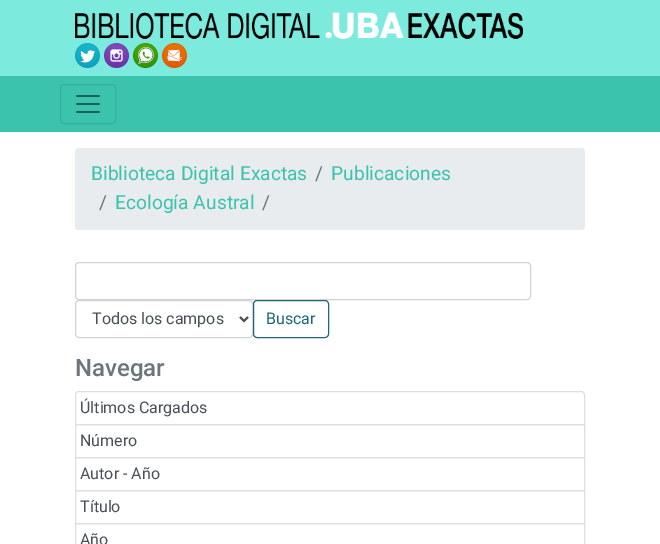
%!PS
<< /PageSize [660 544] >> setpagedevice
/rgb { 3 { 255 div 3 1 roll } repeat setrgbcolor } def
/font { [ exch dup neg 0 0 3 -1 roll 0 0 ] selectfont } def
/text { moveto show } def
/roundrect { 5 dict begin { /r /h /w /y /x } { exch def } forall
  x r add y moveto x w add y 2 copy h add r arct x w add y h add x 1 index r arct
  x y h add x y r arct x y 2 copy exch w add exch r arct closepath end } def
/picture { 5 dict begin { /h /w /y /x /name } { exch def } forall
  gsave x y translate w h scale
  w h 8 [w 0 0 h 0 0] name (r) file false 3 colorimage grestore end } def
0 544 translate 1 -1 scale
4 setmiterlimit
255 255 255 rgb
0 0 660 544 rectfill
124 234 221 rgb
0 0 660 76 rectfill
(img_01.rgb) 75 12 448 27 picture
(img_02.rgb) 75 43 25 25 picture
(img_03.rgb) 104 43 25 25 picture
(img_04.rgb) 133 43 25 25 picture
(img_05.rgb) 162 43 25 25 picture
59 195 173 rgb
0 76 660 56 rectfill
53 176 156 rgb
60.5 84.5 55 39 3.5 roundrect stroke
(img_06.rgb) 76 95 24 18 picture
233 236 239 rgb
75 148 510 82 4 roundrect fill
206 212 218 rgb
75.5 262.5 455 37 3.5 roundrect stroke
75.5 300.5 177 37 3.5 roundrect stroke
73 80 87 rgb
2 setlinewidth
240 317 moveto 4 4 rlineto 4 -4 rlineto stroke
31 105 116 rgb
1 setlinewidth
253.5 300.5 75 37 3.5 roundrect stroke
223 223 223 rgb
79 391.5 moveto 502 0 rlineto 2 0 3.5 1.5 3.5 3.5 rcurveto 0 29.5 rlineto -509 0 rlineto 0 -29.5 rlineto 0 -2 1.5 -3.5 3.5 -3.5 rcurveto closepath stroke
75.5 424.5 509 33 rectstroke
75.5 457.5 509 33 rectstroke
75.5 490.5 509 33 rectstroke
75.5 523.5 509 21 rectstroke
/Roboto-Regular 19.25 font
59 195 173 rgb
(Biblioteca Digital Exactas) 91 180 text
108 117 125 rgb
(/) 315 180 text
59 195 173 rgb
(Publicaciones) 331 180 text
108 117 125 rgb
(/) 99 209 text
59 195 173 rgb
(Ecología Austral) 115 209 text
108 117 125 rgb
(/) 262 209 text
/Roboto-Regular 16 font
73 80 87 rgb
(Todos los campos) 92 324 text
31 105 116 rgb
(Buscar) 266 324 text
/Roboto-Medium 24 font
108 117 125 rgb
(Navegar) 75 376 text
/Roboto-Regular 16 font
73 80 87 rgb
(Últimos Cargados) 80 413 text
(Número) 80 446 text
(Autor - Año) 80 479 text
(Título) 80 512 text
(Año) 80 545 text
showpage
